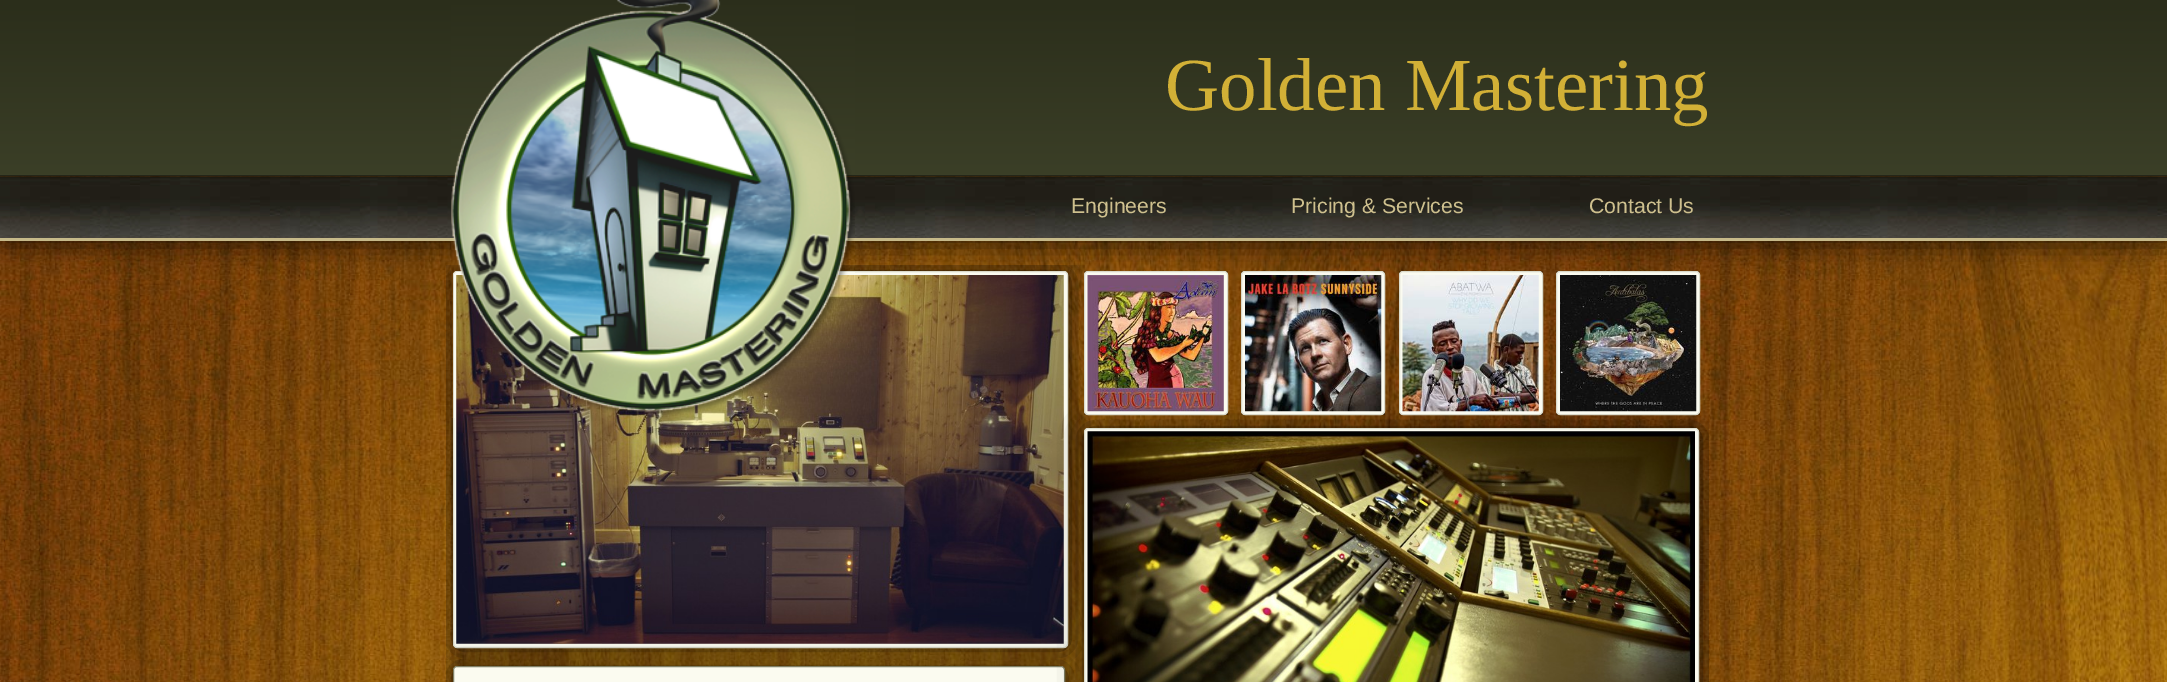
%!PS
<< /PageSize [2167 682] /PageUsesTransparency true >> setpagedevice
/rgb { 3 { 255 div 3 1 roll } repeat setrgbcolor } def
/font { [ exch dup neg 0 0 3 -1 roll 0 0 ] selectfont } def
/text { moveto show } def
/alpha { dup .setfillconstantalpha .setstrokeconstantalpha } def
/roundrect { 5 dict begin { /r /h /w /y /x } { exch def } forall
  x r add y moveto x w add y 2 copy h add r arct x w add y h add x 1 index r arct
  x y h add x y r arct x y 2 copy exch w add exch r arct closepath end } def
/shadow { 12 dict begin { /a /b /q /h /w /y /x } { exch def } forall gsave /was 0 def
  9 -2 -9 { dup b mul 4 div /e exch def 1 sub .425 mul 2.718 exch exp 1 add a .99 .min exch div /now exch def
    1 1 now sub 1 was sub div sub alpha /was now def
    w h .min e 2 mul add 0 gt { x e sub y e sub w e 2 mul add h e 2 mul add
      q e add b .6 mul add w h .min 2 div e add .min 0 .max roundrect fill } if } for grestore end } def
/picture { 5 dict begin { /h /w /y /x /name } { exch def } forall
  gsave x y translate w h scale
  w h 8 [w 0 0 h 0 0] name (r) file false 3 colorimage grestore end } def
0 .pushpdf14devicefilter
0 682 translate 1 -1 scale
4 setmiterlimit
255 255 255 rgb
0 0 2167 682 rectfill
(img_01.rgb) 0 176 2167 506 picture
0 0 0 rgb
1 6 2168 240 0 12.5 0.6 shadow
gsave 0 0 moveto 2167 0 rlineto 0 175 rlineto -2167 0 rlineto closepath clip newpath
<< /ShadingType 2 /ColorSpace /DeviceRGB /Coords [1084 0 1084 175] /Extend [true true] /Function << /FunctionType 2 /Domain [0 1] /C0 [0.169 0.18 0.106] /C1 [0.231 0.247 0.153] /N 1 >> >> shfill grestore
(img_02.rgb) 0 176 2167 62 picture
37 38 24 rgb
0 175 2167 1 rectfill
198 185 137 rgb
0 238 2167 3 rectfill
gsave
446 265 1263 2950 rectclip
0 0 0 rgb
454 273 615 376 4 12.5 0.8 shadow
grestore
251 251 240 rgb
453.5 271.5 614 376 3.5 roundrect gsave fill grestore
218 218 203 rgb
stroke
gsave
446 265 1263 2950 rectclip
0 0 0 rgb
454 668 612 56 4 12.5 0.8 shadow
grestore
(img_04.rgb) 456 275 608 369 picture
(img_03.rgb) 451 0 404 418 picture
251 251 240 rgb
453.5 666.5 611 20 3.5 roundrect gsave fill grestore
127 127 102 rgb
stroke
gsave
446 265 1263 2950 rectclip
0 0 0 rgb
1085 429 615 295 4 12.5 0.8 shadow
grestore
251 251 240 rgb
1084.5 428.5 614 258 3.5 roundrect gsave fill grestore
218 218 203 rgb
stroke
(img_09.rgb) 1087 431 608 251 picture
gsave
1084 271 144 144 rectclip
0 0 0 rgb
1085 273 144 143 4 12.5 0.8 shadow
grestore
251 251 240 rgb
1084.5 271.5 143 143 3.5 roundrect gsave fill grestore
218 218 203 rgb
stroke
(img_05.rgb) 1087 275 137 137 picture
gsave
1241 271 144 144 rectclip
0 0 0 rgb
1243 273 143 143 4 12.5 0.8 shadow
grestore
251 251 240 rgb
1241.5 271.5 143 143 3.5 roundrect gsave fill grestore
218 218 203 rgb
stroke
(img_06.rgb) 1245 275 137 137 picture
gsave
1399 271 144 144 rectclip
0 0 0 rgb
1400 273 144 143 4 12.5 0.8 shadow
grestore
251 251 240 rgb
1399.5 271.5 143 143 3.5 roundrect gsave fill grestore
218 218 203 rgb
stroke
(img_07.rgb) 1402 275 137 137 picture
gsave
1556 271 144 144 rectclip
0 0 0 rgb
1558 273 143 143 4 12.5 0.8 shadow
grestore
251 251 240 rgb
1556.5 271.5 143 143 3.5 roundrect gsave fill grestore
218 218 203 rgb
stroke
(img_08.rgb) 1560 275 137 137 picture
/LiberationSerif-Regular 75 font
210 176 54 rgb
(Golden Mastering) 1165 110 text
/LiberationSans-Regular 21.25 font
206 192 142 rgb
(Engineers) 1071 213 text
(Pricing & Services) 1291 213 text
(Contact Us) 1589 213 text
.poppdf14devicefilter showpage
